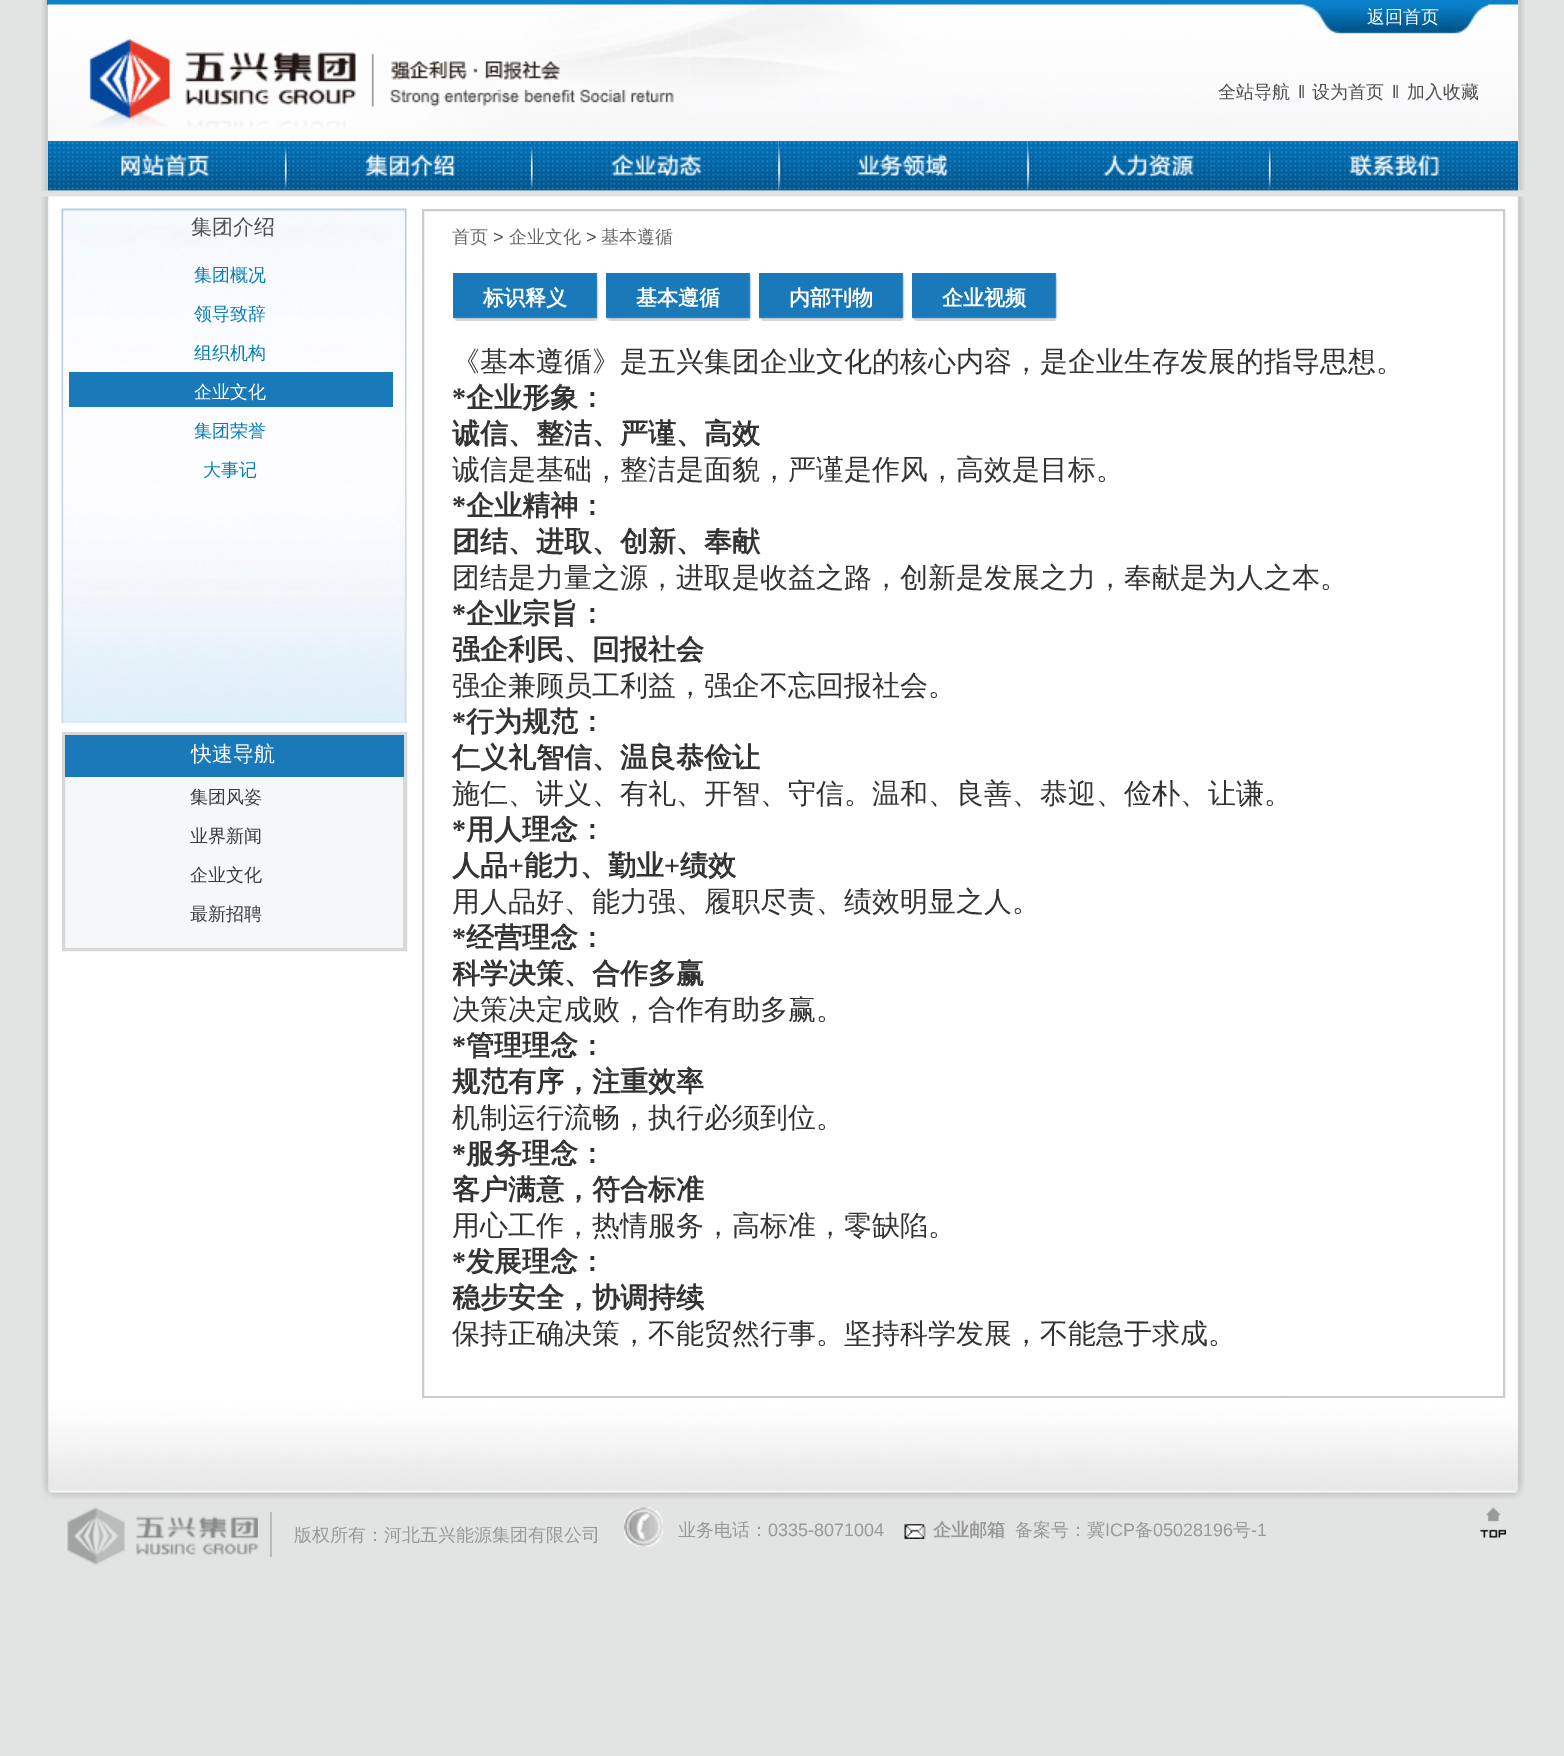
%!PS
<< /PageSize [1564 1756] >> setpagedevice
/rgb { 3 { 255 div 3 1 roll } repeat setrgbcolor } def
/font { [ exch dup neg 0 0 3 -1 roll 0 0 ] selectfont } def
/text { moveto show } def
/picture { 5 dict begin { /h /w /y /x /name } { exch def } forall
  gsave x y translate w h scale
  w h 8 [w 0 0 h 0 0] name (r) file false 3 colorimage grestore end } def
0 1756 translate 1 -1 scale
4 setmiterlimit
226 228 228 rgb
0 0 1564 1756 rectfill
(img_01.rgb) 41 0 1484 191 picture
11 129 203 rgb
47 0 1471 5 rectfill
(img_02.rgb) 48 4 641 137 picture
(img_03.rgb) 688 4 830 137 picture
(img_04.rgb) 48 141 237 50 picture
(img_05.rgb) 285 141 246 50 picture
(img_06.rgb) 531 141 248 50 picture
(img_07.rgb) 778 141 250 50 picture
(img_08.rgb) 1027 141 242 50 picture
(img_09.rgb) 1269 141 249 50 picture
(img_10.rgb) 41 196 1484 1202 picture
(img_11.rgb) 61 208 346 515 picture
26 121 185 rgb
69 372 324 35 rectfill
215 216 217 rgb
2 setlinewidth
63 733 343 217 rectstroke
246 247 248 rgb
65 777 338 171 rectfill
215 216 217 rgb
64 735 340 214 rectstroke
26 121 185 rgb
65 735 339 42 rectfill
204 204 204 rgb
423 210 1081 1187 rectstroke
(img_12.rgb) 453 273 146 48 picture
(img_13.rgb) 606 273 146 48 picture
(img_12.rgb) 759 273 146 48 picture
(img_13.rgb) 912 273 146 48 picture
(img_14.rgb) 41 1398 1484 102 picture
(img_15.rgb) 67 1507 191 58 picture
186 187 187 rgb
270 1512 2 45 rectfill
(img_16.rgb) 624 1507 39 40 picture
(img_17.rgb) 904 1524 22 15 picture
(img_18.rgb) 1480 1507 26 31 picture
/WenQuanYiZenHei-Medium 18 font
255 255 255 rgb
(返回首页) 1367 23 text
77 77 77 rgb
(全站导航) 1218 98 text
/LiberationSans-Regular 18 font
(‖) 1298 98 text
/WenQuanYiZenHei-Medium 18 font
(设为首页) 1312 98 text
/LiberationSans-Regular 18 font
(‖) 1392 98 text
/WenQuanYiZenHei-Medium 18 font
(加入收藏) 1407 98 text
/WenQuanYiZenHei-Medium 21 font
(集团介绍) 191 234 text
/WenQuanYiZenHei-Medium 18 font
7 125 184 rgb
(集团概况) 194 281 text
(领导致辞) 194 320 text
(组织机构) 194 359 text
255 255 255 rgb
(企业文化) 194 398 text
7 125 184 rgb
(集团荣誉) 194 437 text
(大事记) 203 476 text
/WenQuanYiZenHei-Medium 21 font
255 255 255 rgb
(快速导航) 191 761 text
/WenQuanYiZenHei-Medium 18 font
59 60 60 rgb
(集团风姿) 190 803 text
(业界新闻) 190 842 text
(企业文化) 190 881 text
(最新招聘) 190 920 text
105 105 106 rgb
(首页) 452 243 text
/LiberationSans-Regular 18 font
77 77 77 rgb
(>) 493 243 text
/WenQuanYiZenHei-Medium 18 font
105 105 106 rgb
(企业文化) 509 243 text
/LiberationSans-Regular 18 font
77 77 77 rgb
(>) 586 243 text
/WenQuanYiZenHei-Medium 18 font
105 105 106 rgb
(基本遵循) 601 243 text
/WenQuanYiZenHei-Bold 21 font
255 255 255 rgb
(标识释义) 483 305 text
(基本遵循) 636 305 text
(内部刊物) 789 305 text
(企业视频) 942 305 text
/WenQuanYiZenHei-Medium 28 font
51 51 51 rgb
(《基本遵循》是五兴集团企业文化的核心内容，是企业生存发展的指导思想。) 452 371 text
/LiberationSerif-Bold 28 font
(*) 452 407 text
/WenQuanYiZenHei-Bold 28 font
(企业形象：) 466 407 text
(诚信、整洁、严谨、高效) 452 443 text
/WenQuanYiZenHei-Medium 28 font
(诚信是基础，整洁是面貌，严谨是作风，高效是目标。) 452 479 text
/LiberationSerif-Bold 28 font
(*) 452 515 text
/WenQuanYiZenHei-Bold 28 font
(企业精神：) 466 515 text
(团结、进取、创新、奉献) 452 551 text
/WenQuanYiZenHei-Medium 28 font
(团结是力量之源，进取是收益之路，创新是发展之力，奉献是为人之本。) 452 587 text
/LiberationSerif-Bold 28 font
(*) 452 623 text
/WenQuanYiZenHei-Bold 28 font
(企业宗旨：) 466 623 text
(强企利民、回报社会) 452 659 text
/WenQuanYiZenHei-Medium 28 font
(强企兼顾员工利益，强企不忘回报社会。) 452 695 text
/LiberationSerif-Bold 28 font
(*) 452 731 text
/WenQuanYiZenHei-Bold 28 font
(行为规范：) 466 731 text
(仁义礼智信、温良恭俭让) 452 767 text
/WenQuanYiZenHei-Medium 28 font
(施仁、讲义、有礼、开智、守信。温和、良善、恭迎、俭朴、让谦。) 452 803 text
/LiberationSerif-Bold 28 font
(*) 452 839 text
/WenQuanYiZenHei-Bold 28 font
(用人理念：) 466 839 text
(人品) 452 875 text
/LiberationSerif-Bold 28 font
(+) 508 875 text
/WenQuanYiZenHei-Bold 28 font
(能力、勤业) 524 875 text
/LiberationSerif-Bold 28 font
(+) 664 875 text
/WenQuanYiZenHei-Bold 28 font
(绩效) 680 875 text
/WenQuanYiZenHei-Medium 28 font
(用人品好、能力强、履职尽责、绩效明显之人。) 452 911 text
/LiberationSerif-Bold 28 font
(*) 452 947 text
/WenQuanYiZenHei-Bold 28 font
(经营理念：) 466 947 text
gsave
453 344 1020 1038 rectclip
(科学决策、合作多赢) 452 983 text
grestore
/WenQuanYiZenHei-Medium 28 font
(决策决定成败，合作有助多赢。) 452 1019 text
/LiberationSerif-Bold 28 font
(*) 452 1055 text
/WenQuanYiZenHei-Bold 28 font
(管理理念：) 466 1055 text
(规范有序，注重效率) 452 1091 text
/WenQuanYiZenHei-Medium 28 font
(机制运行流畅，执行必须到位。) 452 1127 text
/LiberationSerif-Bold 28 font
(*) 452 1163 text
/WenQuanYiZenHei-Bold 28 font
(服务理念：) 466 1163 text
(客户满意，符合标准) 452 1199 text
/WenQuanYiZenHei-Medium 28 font
(用心工作，热情服务，高标准，零缺陷。) 452 1235 text
/LiberationSerif-Bold 28 font
(*) 452 1271 text
/WenQuanYiZenHei-Bold 28 font
(发展理念：) 466 1271 text
gsave
453 344 1020 1038 rectclip
(稳步安全，协调持续) 452 1307 text
grestore
/WenQuanYiZenHei-Medium 28 font
(保持正确决策，不能贸然行事。坚持科学发展，不能急于求成。) 452 1343 text
/WenQuanYiZenHei-Medium 18 font
153 153 153 rgb
(版权所有：河北五兴能源集团有限公司) 294 1541 text
(业务电话：) 678 1536 text
/LiberationSans-Regular 18 font
(0335-8071004) 768 1536 text
/WenQuanYiZenHei-Bold 18 font
(企业邮箱) 933 1536 text
/WenQuanYiZenHei-Medium 18 font
(备案号：冀) 1015 1536 text
/LiberationSans-Regular 18 font
(ICP) 1105 1536 text
/WenQuanYiZenHei-Medium 18 font
(备) 1135 1536 text
/LiberationSans-Regular 18 font
(05028196) 1153 1536 text
/WenQuanYiZenHei-Medium 18 font
(号) 1233 1536 text
/LiberationSans-Regular 18 font
(-1) 1251 1536 text
showpage
